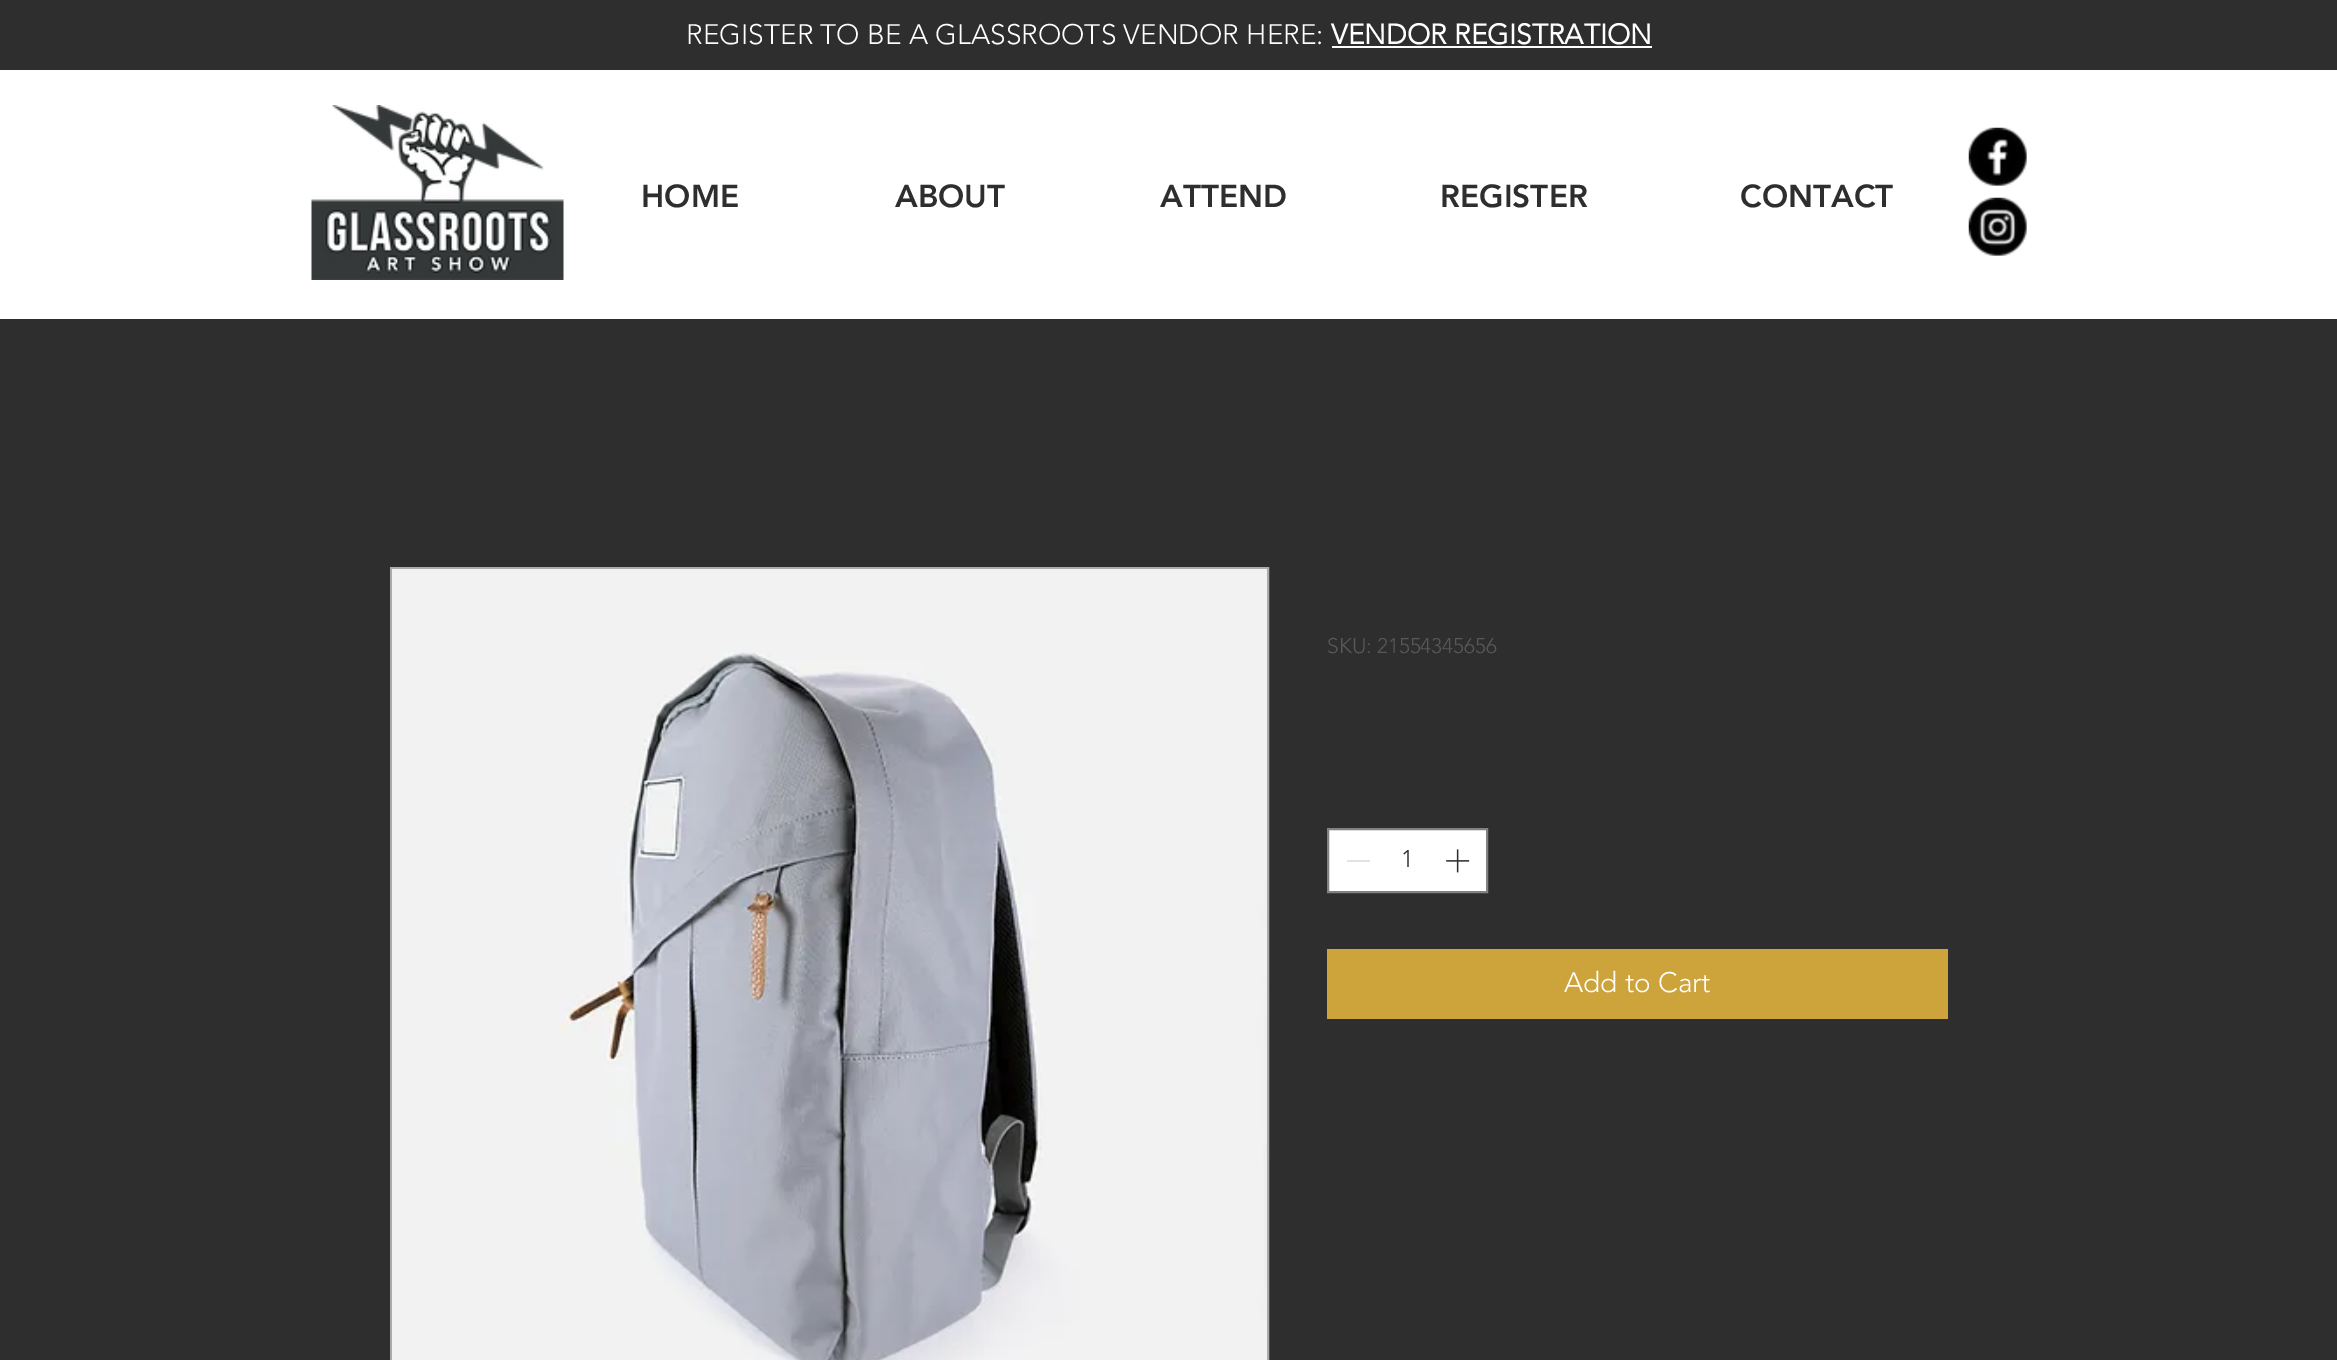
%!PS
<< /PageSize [2337 1360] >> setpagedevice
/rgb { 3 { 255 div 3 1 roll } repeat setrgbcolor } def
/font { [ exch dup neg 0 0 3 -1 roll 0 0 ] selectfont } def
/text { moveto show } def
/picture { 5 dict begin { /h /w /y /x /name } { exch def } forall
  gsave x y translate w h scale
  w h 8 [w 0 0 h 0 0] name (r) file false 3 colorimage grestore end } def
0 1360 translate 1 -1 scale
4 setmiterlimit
47 46 46 rgb
0 0 2337 1360 rectfill
255 255 255 rgb
1332 46 320 2 rectfill
0 70 2337 249 rectfill
(img_01.rgb) 311 105 253 175 picture
(img_02.rgb) 1968 127 59 59 picture
(img_03.rgb) 1968 197 59 59 picture
172 171 171 rgb
2 setlinewidth
391 568 877 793 rectstroke
(img_04.rgb) 392 569 875 791 picture
255 255 255 rgb
1328 829 moveto 159 0 rlineto 0 63 rlineto -159 0 rlineto closepath gsave fill grestore
130 130 130 rgb
stroke
227 227 227 rgb
1347 860 23 2 rectfill
(img_05.rgb) 1446 849 24 24 picture
204 164 59 rgb
1327 949 621 70 rectfill
/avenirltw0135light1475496-Light 28 font
255 255 255 rgb
(REGISTER TO BE A GLASSROOTS VENDOR HERE:) 686 44 text
/avenirltw0135light1475496-Bold 28 font
(VENDOR REGISTRATION) 1331 44 text
/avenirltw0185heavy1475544-Black 31.5 font
47 46 46 rgb
(HOME) 641 207 text
(ABOUT) 895 207 text
(ATTEND) 1160 207 text
(REGISTER) 1440 207 text
(CONTACT) 1740 207 text
/avenirltw0135light1475496-Light 21 font
89 88 88 rgb
(SKU: 21554345656) 1327 653 text
/avenirltw0135light1475496-Light 24 font
47 46 46 rgb
(1) 1401 867 text
/avenirltw0135light1475496-Light 28 font
255 255 255 rgb
(Add to Cart) 1564 992 text
showpage
